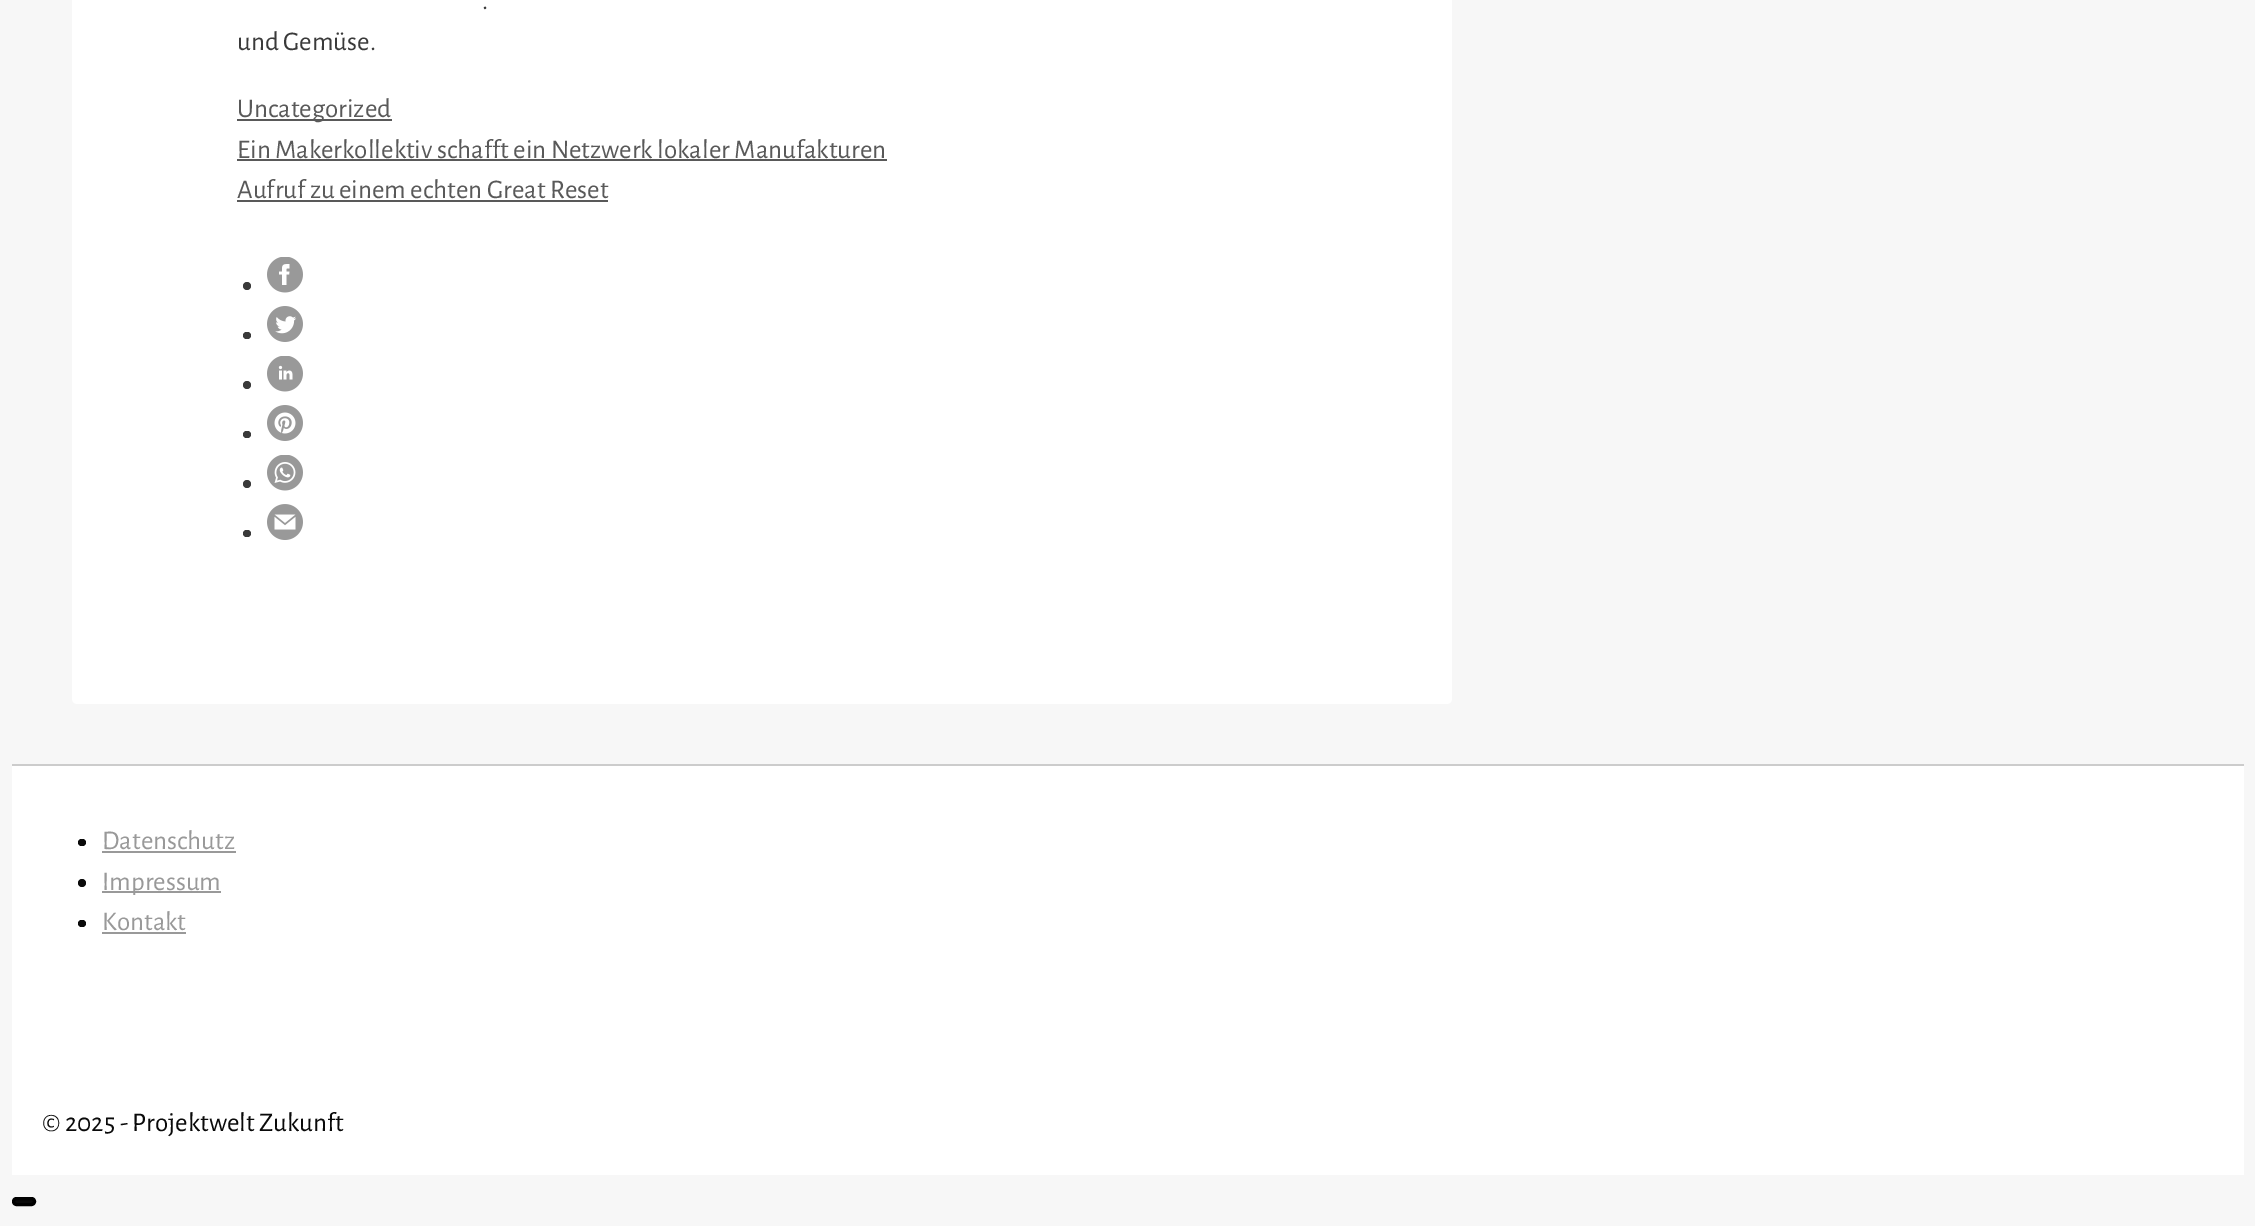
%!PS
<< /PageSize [2255 1226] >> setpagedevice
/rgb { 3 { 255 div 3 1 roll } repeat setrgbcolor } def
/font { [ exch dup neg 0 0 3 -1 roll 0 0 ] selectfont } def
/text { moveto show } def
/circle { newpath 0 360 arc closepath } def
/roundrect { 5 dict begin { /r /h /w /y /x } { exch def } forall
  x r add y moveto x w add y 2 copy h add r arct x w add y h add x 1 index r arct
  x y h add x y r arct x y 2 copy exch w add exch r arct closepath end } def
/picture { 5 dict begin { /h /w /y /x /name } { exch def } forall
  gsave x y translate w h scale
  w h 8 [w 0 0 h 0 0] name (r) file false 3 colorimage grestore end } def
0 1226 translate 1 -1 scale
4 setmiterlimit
247 247 247 rgb
0 0 2255 1226 rectfill
255 255 255 rgb
72 -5 1380 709 5 roundrect fill
89 89 89 rgb
237 119 155 2 rectfill
237 159 650 2 rectfill
237 200 371 2 rectfill
58 58 58 rgb
247 286 4 circle fill
(img_01.rgb) 267 257 36 36 picture
243 332 8 7 3.5 roundrect fill
(img_02.rgb) 267 306 36 36 picture
247 385 4 circle fill
(img_03.rgb) 267 356 36 36 picture
243 431 8 7 3.5 roundrect fill
(img_04.rgb) 267 405 36 36 picture
247 484 4 circle fill
(img_05.rgb) 267 455 36 36 picture
243 530 8 7 3.5 roundrect fill
(img_06.rgb) 267 504 36 36 picture
255 255 255 rgb
12 766 2232 409 rectfill
204 204 204 rgb
12 764 2232 2 rectfill
10 10 10 rgb
78 839 8 7 3.5 roundrect fill
153 153 153 rgb
102 851 134 2 rectfill
10 10 10 rgb
82 883 4 circle fill
153 153 153 rgb
102 891 119 2 rectfill
10 10 10 rgb
78 920 8 7 3.5 roundrect fill
153 153 153 rgb
102 932 84 2 rectfill
10 10 10 rgb
13.5 1198.5 21 6 3 roundrect gsave fill grestore
0 0 0 rgb
3 setlinewidth
stroke
/AlegreyaSans-Regular 27 font
58 58 58 rgb
(.) 482 9 text
(und Gemüse.) 237 50 text
89 89 89 rgb
(Uncategorized) 237 117 text
(Ein Makerkollektiv schafft ein Netzwerk lokaler Manufakturen) 237 158 text
(Aufruf zu einem echten Great Reset) 237 198 text
153 153 153 rgb
(Datenschutz) 102 849 text
(Impressum) 102 890 text
(Kontakt) 102 930 text
10 10 10 rgb
(© 2025 - Projektwelt Zukunft) 42 1131 text
showpage
